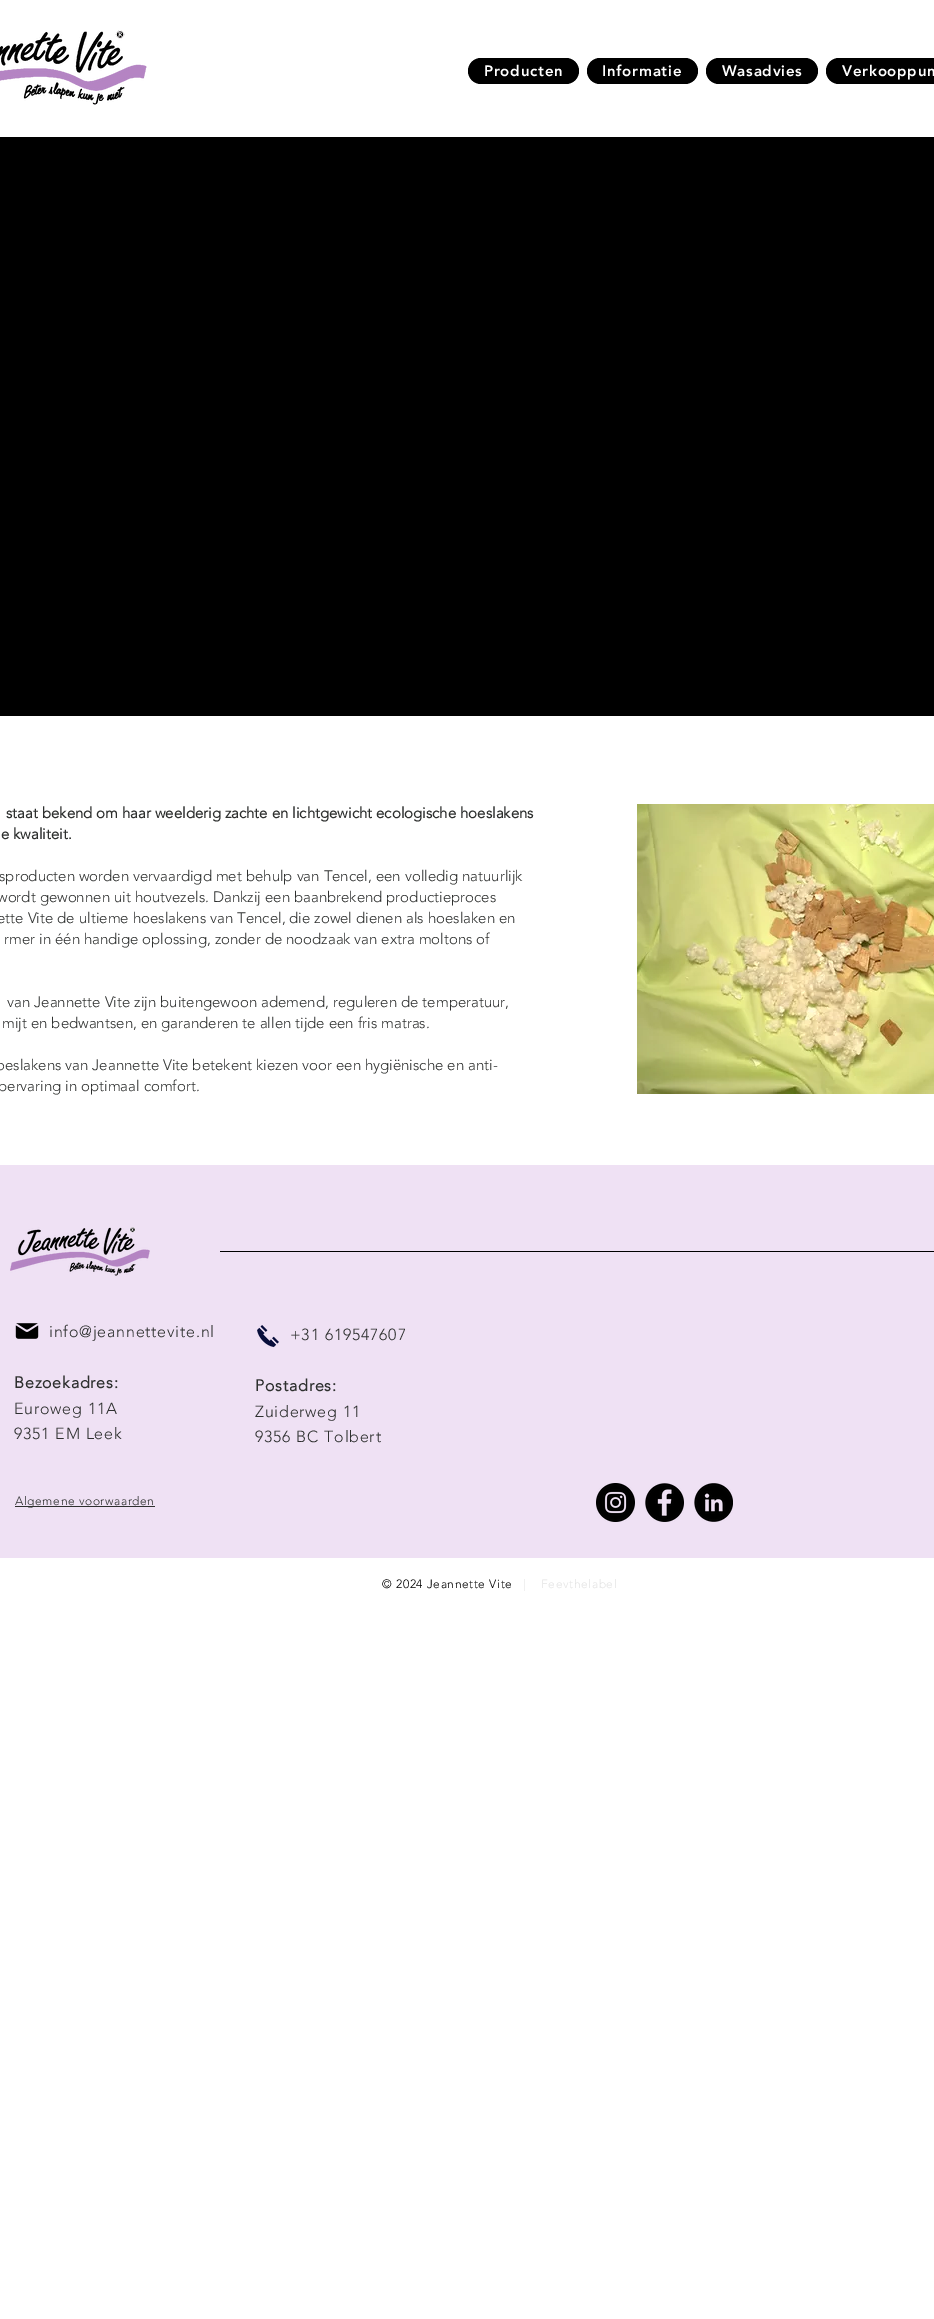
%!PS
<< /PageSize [934 2319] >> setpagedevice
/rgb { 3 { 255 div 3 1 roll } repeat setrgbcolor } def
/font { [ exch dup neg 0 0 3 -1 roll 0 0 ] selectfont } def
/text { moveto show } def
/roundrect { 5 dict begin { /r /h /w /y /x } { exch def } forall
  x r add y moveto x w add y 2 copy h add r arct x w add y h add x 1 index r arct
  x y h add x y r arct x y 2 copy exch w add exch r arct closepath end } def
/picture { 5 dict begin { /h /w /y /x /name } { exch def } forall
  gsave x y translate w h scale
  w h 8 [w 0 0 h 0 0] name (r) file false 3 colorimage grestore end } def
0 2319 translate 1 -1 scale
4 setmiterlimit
255 255 255 rgb
0 0 934 2319 rectfill
(img_01.rgb) 0 30 147 75 picture
0 0 0 rgb
468 58 111 26 13 roundrect fill
587 58 111 26 13 roundrect fill
706 58 112 26 13 roundrect fill
826 58 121 26 13 roundrect fill
0 137 934 579 rectfill
(img_02.rgb) 637 804 297 290 picture
239 225 244 rgb
0 1165 934 393 rectfill
(img_03.rgb) 10 1227 140 49 picture
0 0 0 rgb
220 1251 714 1 rectfill
(img_04.rgb) 15 1323 24 16 picture
46 48 47 rgb
15 1506 140 1 rectfill
(img_05.rgb) 596 1483 39 39 picture
(img_06.rgb) 645 1483 39 39 picture
(img_07.rgb) 694 1483 39 39 picture
(img_08.rgb) 257 1325 22 23 picture
/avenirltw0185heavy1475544-Black 15 font
255 255 255 rgb
484 76 moveto 0.75 0 (Producten) ashow
602 76 moveto 0.75 0 (Informatie) ashow
722 76 moveto 0.75 0 (Wasadvies) ashow
842 76 moveto 0.75 0 (Verkooppun) ashow
/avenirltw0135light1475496-Bold 15 font
46 48 47 rgb
(staat bekend om haar weelderig zachte en lichtgewicht ecologische hoeslakens) 6 818 text
(e kwaliteit.) 1 839 text
/avenirltw0135light1475496-Light 15 font
(sproducten worden vervaardigd met behulp van Tencel, een volledig natuurlijk) -1 881 text
(wordt gewonnen uit houtvezels. Dankzij een baanbrekend productieproces) -3 902 text
(ette Vite de ultieme hoeslakens van Tencel, die zowel dienen als hoeslaken en) -3 923 text
(rmer in één handige oplossing, zonder de noodzaak van extra moltons of) 4 944 text
(van Jeannette Vite zijn buitengewoon ademend, reguleren de temperatuur,) 7 1007 text
(mijt en bedwantsen, en garanderen te allen tijde een fris matras.) 2 1028 text
(oeslakens van Jeannette Vite betekent kiezen voor een hygiënische en anti-) -4 1070 text
(pervaring in optimaal comfort.) -2 1091 text
/avenirltw0135light1475496-Light 16 font
49 1337 moveto 0.8 0 (info@jeannettevite.nl) ashow
/avenirltw0135light1475496-Bold 16 font
14 1388 moveto 0.8 0 (Bezoekadres:) ashow
/avenirltw0135light1475496-Light 16 font
14 1414 moveto 0.8 0 (Euroweg 11A) ashow
14 1439 moveto 0.8 0 (9351 EM Leek) ashow
/avenirltw0135light1475496-Light 12 font
15 1505 moveto 0.6 0 (Algemene voorwaarden) ashow
/avenirltw0135light1475496-Light 16 font
290 1340 moveto 0.8 0 (+31 619547607) ashow
/avenirltw0135light1475496-Bold 16 font
255 1391 moveto 0.8 0 (Postadres:) ashow
/avenirltw0135light1475496-Light 16 font
255 1417 moveto 0.8 0 (Zuiderweg 11) ashow
255 1442 moveto 0.8 0 (9356 BC Tolbert) ashow
/avenirltw0135light1475496-Light 12 font
0 0 0 rgb
382 1588 moveto 0.6 0 (© 2024 Jeannette Vite) ashow
228 228 228 rgb
523 1588 moveto 0.6 0 (|    Feevthelabel) ashow
showpage
